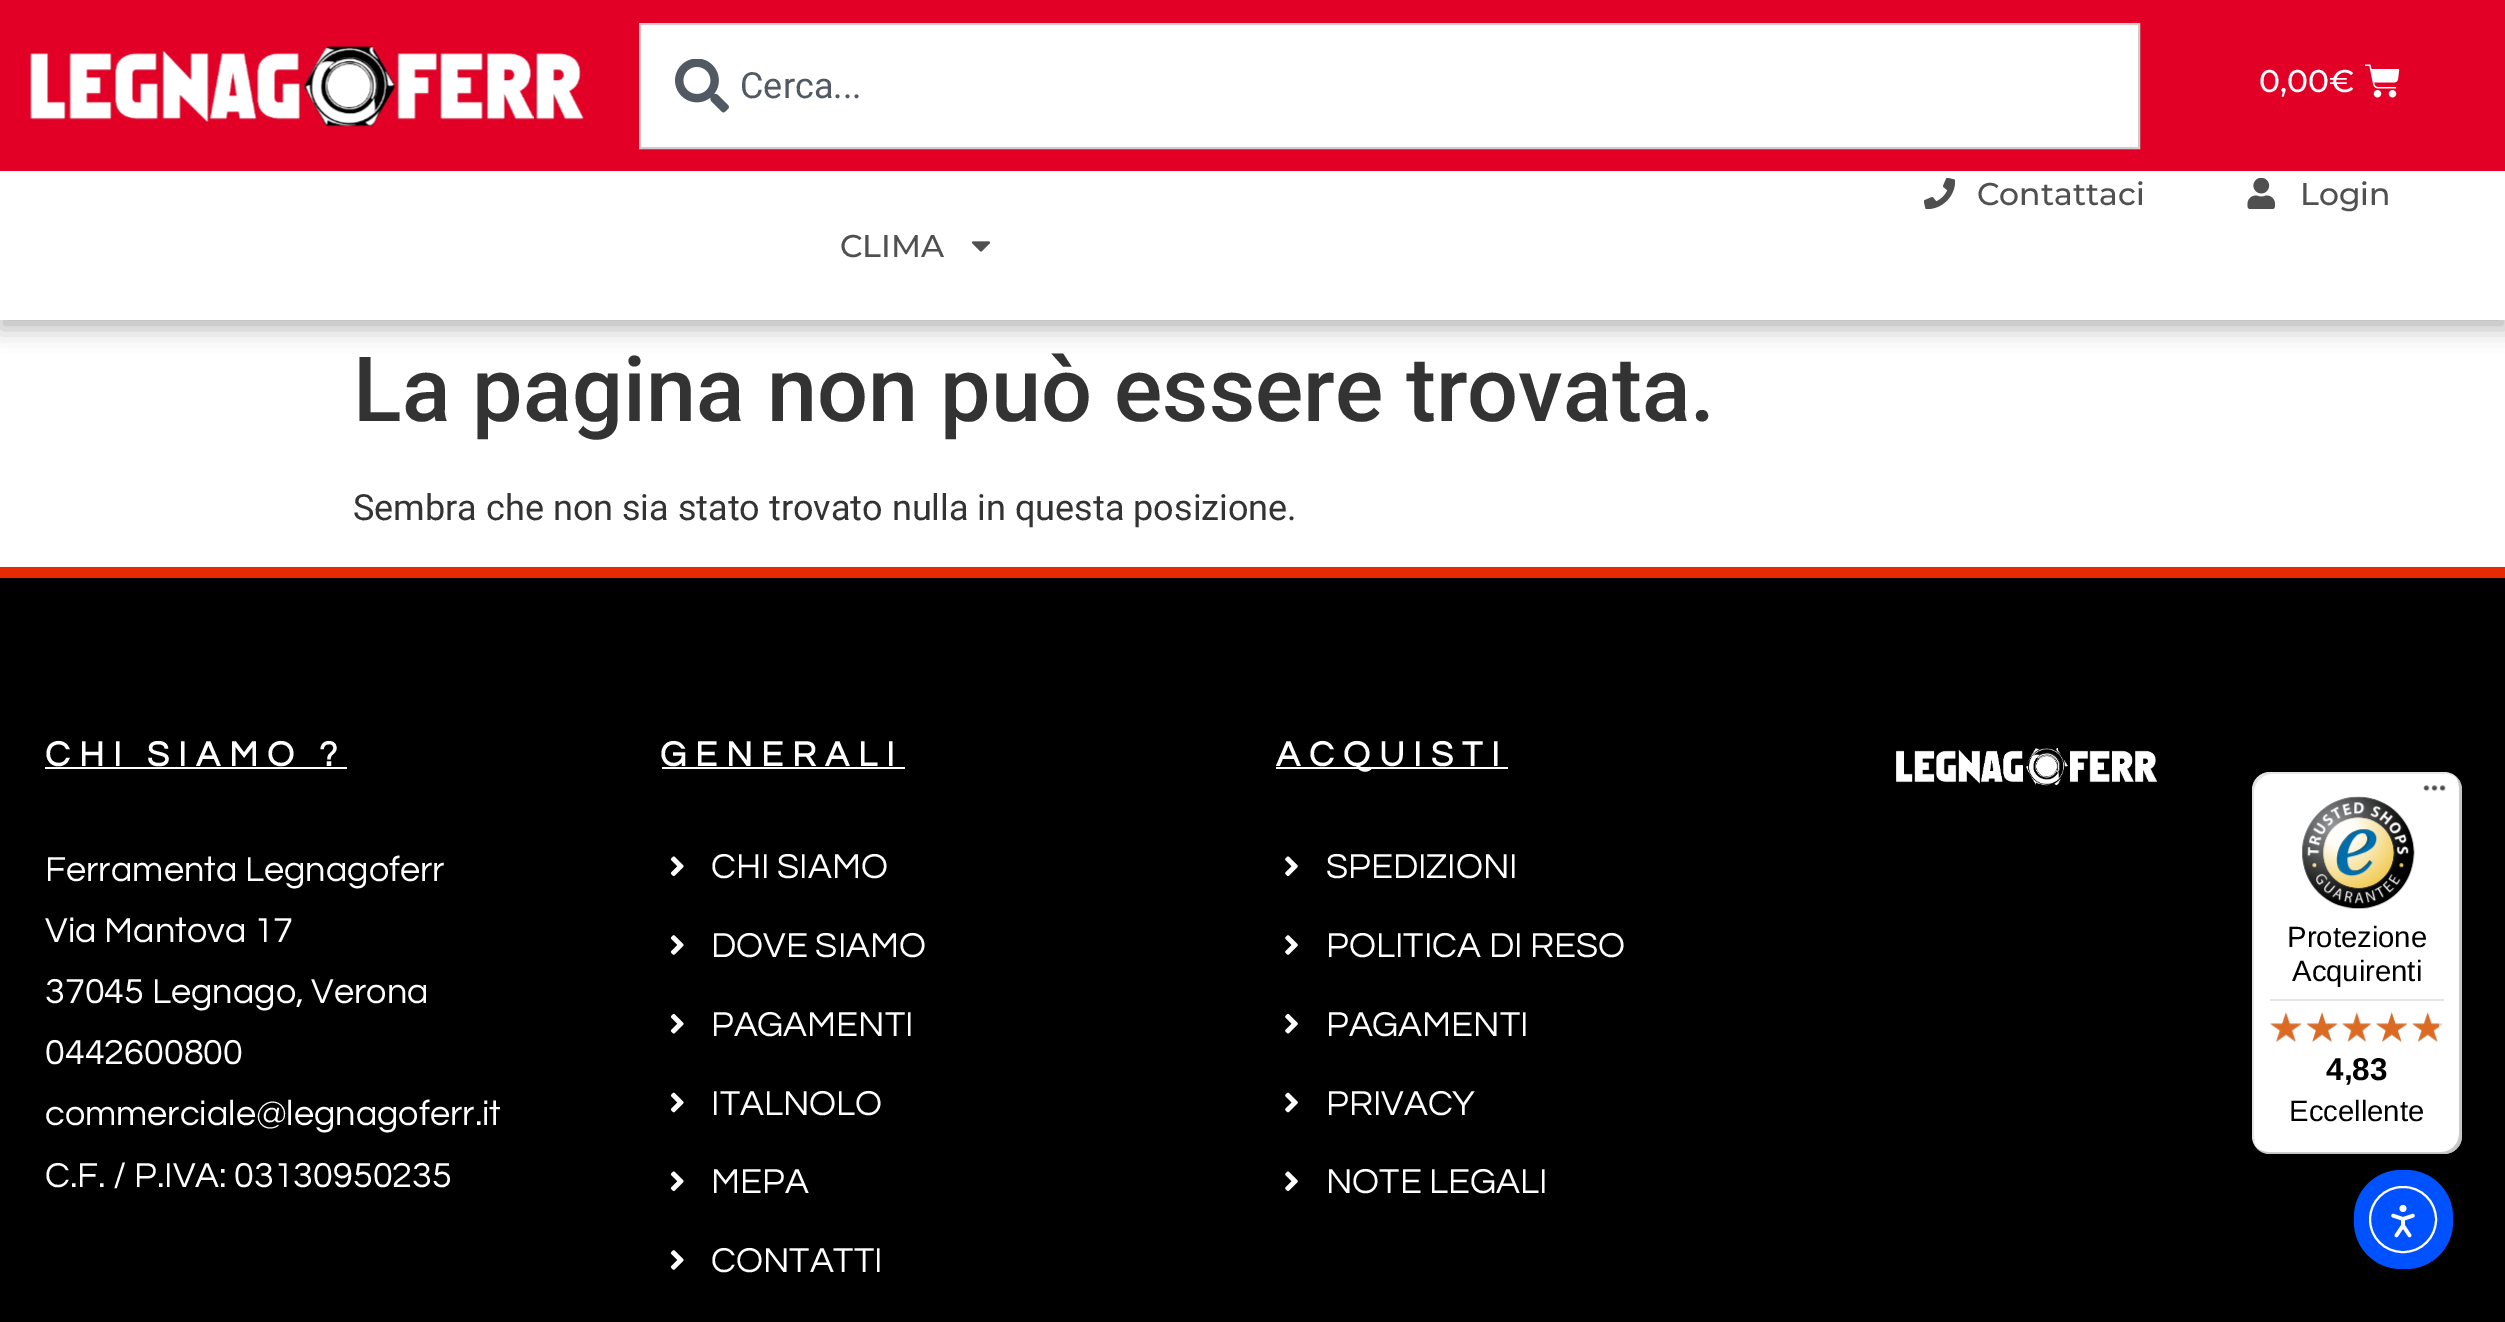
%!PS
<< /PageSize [2505 1322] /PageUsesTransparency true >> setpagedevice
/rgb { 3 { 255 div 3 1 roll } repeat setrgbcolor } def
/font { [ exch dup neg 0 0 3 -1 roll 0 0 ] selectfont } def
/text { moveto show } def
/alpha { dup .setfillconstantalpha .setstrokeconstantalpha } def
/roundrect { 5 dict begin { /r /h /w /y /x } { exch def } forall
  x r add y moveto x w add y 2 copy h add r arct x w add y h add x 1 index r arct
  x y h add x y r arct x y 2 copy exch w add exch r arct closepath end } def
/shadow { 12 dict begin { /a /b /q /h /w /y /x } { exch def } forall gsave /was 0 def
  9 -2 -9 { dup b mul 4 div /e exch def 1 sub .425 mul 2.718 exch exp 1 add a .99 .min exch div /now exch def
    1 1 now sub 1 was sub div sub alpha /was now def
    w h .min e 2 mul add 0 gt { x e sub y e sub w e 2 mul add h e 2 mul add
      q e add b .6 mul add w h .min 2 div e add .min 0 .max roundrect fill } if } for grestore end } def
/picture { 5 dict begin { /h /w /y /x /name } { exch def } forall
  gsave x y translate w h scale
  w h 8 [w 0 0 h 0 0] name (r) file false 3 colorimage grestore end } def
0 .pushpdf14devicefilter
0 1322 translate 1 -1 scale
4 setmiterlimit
255 255 255 rgb
0 0 2505 1322 rectfill
gsave
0 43 moveto 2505 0 rlineto 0 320 rlineto -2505 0 rlineto closepath 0 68 moveto 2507 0 rlineto 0 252 rlineto -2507 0 rlineto closepath eoclip newpath
111 111 111 rgb
0 77 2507 252 0 11 0.5 shadow
grestore
226 0 38 rgb
0 0 2505 171 rectfill
(img_01.rgb) 30 46 554 81 picture
255 255 255 rgb
640 24 moveto 1499 0 rlineto 0 124 rlineto -1499 0 rlineto closepath gsave fill grestore
205 205 205 rgb
2 setlinewidth
stroke
(img_02.rgb) 675 59 54 54 picture
(img_03.rgb) 2365 64 35 34 picture
(img_04.rgb) 1924 178 31 31 picture
(img_05.rgb) 2247 178 29 31 picture
(img_06.rgb) 971 241 20 11 picture
0 0 0 rgb
0 578 2505 744 rectfill
232 42 0 rgb
0 567 2505 11 rectfill
255 255 255 rgb
45 767 302 2 rectfill
662 767 243 2 rectfill
(img_07.rgb) 670 856 14 21 picture
(img_08.rgb) 670 935 14 20 picture
(img_09.rgb) 670 1013 14 21 picture
(img_10.rgb) 670 1092 14 21 picture
(img_07.rgb) 670 1171 14 21 picture
(img_08.rgb) 670 1250 14 20 picture
1276 767 232 2 rectfill
(img_11.rgb) 1285 856 13 21 picture
(img_12.rgb) 1285 935 13 20 picture
(img_13.rgb) 1285 1013 13 21 picture
(img_14.rgb) 1285 1092 13 21 picture
(img_11.rgb) 1285 1171 13 21 picture
(img_15.rgb) 1896 748 262 38 picture
2252 772 210 382 18 roundrect fill
0.1 alpha
0 0 0 rgb
2272 774 moveto 174 0 rlineto 4 0 8 2 12 4 rcurveto -4 -4 -9 -6 -14 -6 rcurveto -174 0 rlineto -10 0 -18 8 -18 18 rcurveto 0 346 rlineto 0 6 3 11 7 15 rcurveto -3 -4 -5 -8 -5 -13 rcurveto 0 -346 rlineto 0 -10 9 -18 18 -18 rcurveto closepath fill
0.2 alpha
2256 1148 moveto 4 4 9 6 14 6 rcurveto 174 0 rlineto 10 0 18 -8 18 -18 rcurveto 0 -346 rlineto 0 -7 -4 -13 -9 -16 rcurveto 4 3 6 8 6 14 rcurveto 0 346 rlineto 0 10 -8 18 -18 18 rcurveto -173 0 rlineto -4 0 -8 -2 -12 -4 rcurveto closepath fill
50 50 50 rgb
2257 1149 moveto 3 3 8 5 13 5 rcurveto 174 0 rlineto 10 0 18 -8 18 -18 rcurveto 0 -346 rlineto 0 -5 -2 -10 -6 -14 rcurveto 2 4 4 8 4 12 rcurveto 0 347 rlineto 0 10 -8 18 -18 18 rcurveto -173 0 rlineto -5 0 -9 -2 -12 -4 rcurveto closepath fill
0.3 alpha
255 255 255 rgb
2257 1149 moveto 3 3 8 5 13 5 rcurveto 174 0 rlineto 10 0 18 -8 18 -18 rcurveto 0 -346 rlineto 0 -7 -4 -14 -11 -16 rcurveto 5 3 9 8 9 15 rcurveto 0 346 rlineto 0 10 -8 18 -18 18 rcurveto -173 0 rlineto -5 0 -9 -2 -12 -4 rcurveto closepath fill
1 alpha
(img_16.rgb) 2423 785 23 7 picture
(img_17.rgb) 2302 796 113 113 picture
229 229 229 rgb
2270 999 174 2 rectfill
(img_18.rgb) 2270 1013 32 29 picture
(img_19.rgb) 2307 1012 30 30 picture
(img_20.rgb) 2342 1013 30 29 picture
(img_21.rgb) 2376 1012 31 30 picture
(img_22.rgb) 2412 1013 31 29 picture
(img_23.rgb) 2270 1012 32 30 picture
(img_24.rgb) 2306 1012 32 30 picture
(img_25.rgb) 2342 1012 30 30 picture
(img_26.rgb) 2376 1012 31 30 picture
(img_27.rgb) 2412 1012 27 30 picture
0 81 255 rgb
2354 1170 99 99 47 roundrect fill
255 255 255 rgb
2370 1187 66 65 32.5 roundrect stroke
(img_28.rgb) 2391 1204 24 34 picture
/Roboto-Regular 36 font
81 89 98 rgb
(Cerca...) 740 98 text
/Montserrat-Medium 31.5 font
255 255 255 rgb
(0,00€) 2259 92 text
80 80 80 rgb
(Contattaci) 1977 205 text
(Login) 2300 205 text
(CLIMA) 840 257 text
/Roboto-Medium 90 font
51 51 51 rgb
(La pagina non può essere trovata.) 353 421 text
/Roboto-Regular 36 font
(Sembra che non sia stato trovato nulla in questa posizione.) 353 520 text
/Questrial-Bold 36 font
255 255 255 rgb
45 766 moveto 9 0 (CHI SIAMO ?) ashow
/Questrial-Regular 36 font
(Ferramenta Legnagoferr) 45 881 text
(Via Mantova 17) 45 942 text
(37045 Legnago, Verona) 45 1003 text
(0442600800) 45 1064 text
(commerciale@legnagoferr.it) 45 1125 text
(C.F. / P.IVA: 03130950235) 45 1187 text
/Questrial-Bold 36 font
660 766 moveto 9 0 (GENERALI) ashow
/Questrial-Regular 36 font
(CHI SIAMO) 711 878 text
(DOVE SIAMO) 711 957 text
(PAGAMENTI) 711 1036 text
(ITALNOLO) 711 1115 text
(MEPA) 711 1193 text
(CONTATTI) 711 1272 text
/Questrial-Bold 36 font
1276 766 moveto 9 0 (ACQUISTI) ashow
/Questrial-Regular 36 font
(SPEDIZIONI) 1326 878 text
(POLITICA DI RESO) 1326 957 text
(PAGAMENTI) 1326 1036 text
(PRIVACY) 1326 1115 text
(NOTE LEGALI) 1326 1193 text
/LiberationSans-Regular 29.25 font
0 0 0 rgb
(Protezione) 2287 947 text
(Acquirenti) 2292 981 text
/LiberationSans-Bold 31.5 font
(4,83) 2326 1080 text
/LiberationSans-Regular 29.25 font
(Eccellente) 2289 1121 text
.poppdf14devicefilter showpage
